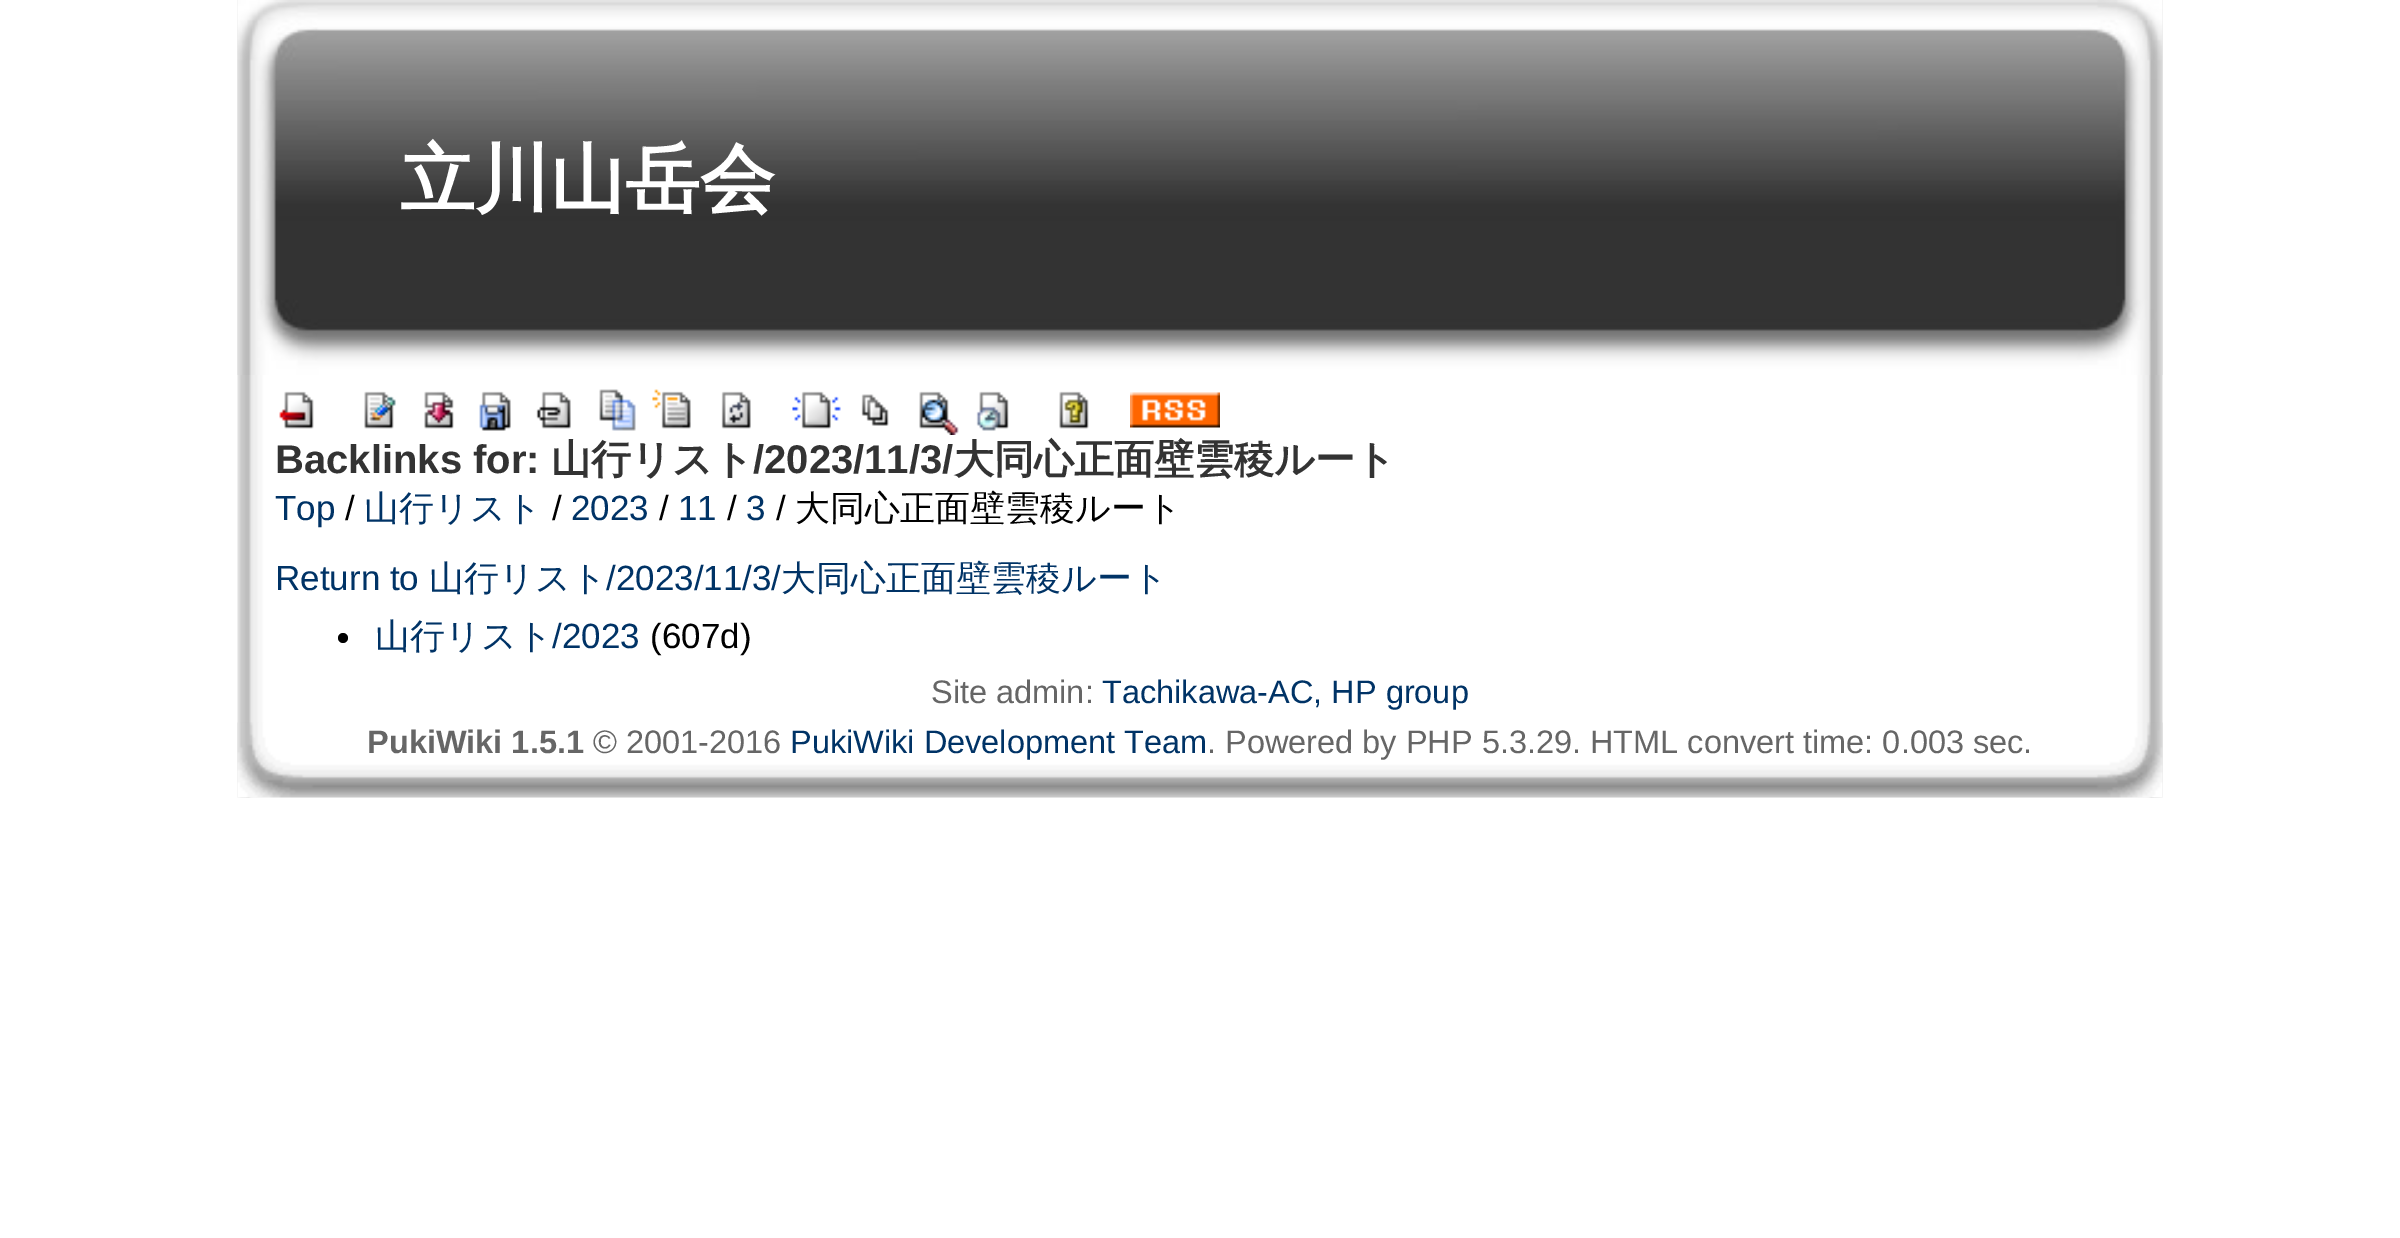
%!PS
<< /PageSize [2400 1238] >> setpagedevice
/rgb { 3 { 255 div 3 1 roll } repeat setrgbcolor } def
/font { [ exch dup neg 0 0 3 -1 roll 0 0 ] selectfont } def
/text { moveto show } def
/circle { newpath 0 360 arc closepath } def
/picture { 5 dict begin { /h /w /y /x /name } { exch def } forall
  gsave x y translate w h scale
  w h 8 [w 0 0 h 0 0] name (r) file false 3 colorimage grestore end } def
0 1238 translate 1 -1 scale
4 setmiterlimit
255 255 255 rgb
0 0 2400 1238 rectfill
(img_01.rgb) 237 0 1926 798 picture
(img_02.rgb) 237 0 1926 375 picture
(img_03.rgb) 279 391 35 38 picture
(img_04.rgb) 364 391 32 38 picture
(img_05.rgb) 424 391 30 38 picture
(img_06.rgb) 479 391 32 40 picture
(img_07.rgb) 536 391 35 38 picture
(img_08.rgb) 599 389 37 42 picture
(img_09.rgb) 652 389 39 40 picture
(img_10.rgb) 721 391 30 38 picture
(img_11.rgb) 792 391 49 38 picture
(img_12.rgb) 861 394 28 32 picture
(img_13.rgb) 919 391 40 44 picture
(img_14.rgb) 976 391 33 40 picture
(img_15.rgb) 1059 391 30 38 picture
(img_16.rgb) 1130 392 90 36 picture
0 0 0 rgb
343 638 5 circle fill
(img_17.rgb) 237 722 1926 76 picture
/WenQuanYiZenHei-Bold 75 font
255 255 255 rgb
(立川山岳会) 400 205 text
/LiberationSans-Bold 40 font
51 51 51 rgb
(Backlinks for:) 275 473 text
/WenQuanYiZenHei-Bold 40 font
(山行リスト) 551 473 text
/LiberationSans-Bold 40 font
(/2023/11/3/) 753 473 text
/WenQuanYiZenHei-Bold 40 font
(大同心正面壁雲稜ルート) 954 473 text
/LiberationSans-Regular 35 font
0 51 102 rgb
(Top) 275 520 text
0 0 0 rgb
(/) 345 520 text
/WenQuanYiZenHei-Medium 35 font
0 51 102 rgb
(山行リスト) 364 520 text
/LiberationSans-Regular 35 font
0 0 0 rgb
(/) 552 520 text
0 51 102 rgb
(2023) 571 520 text
0 0 0 rgb
(/) 659 520 text
0 51 102 rgb
(11) 678 520 text
0 0 0 rgb
(/) 727 520 text
0 51 102 rgb
(3) 746 520 text
0 0 0 rgb
(/) 776 520 text
/WenQuanYiZenHei-Medium 35 font
(大同心正面壁雲稜ルート) 795 520 text
/LiberationSans-Regular 35 font
0 51 102 rgb
(Return to) 275 590 text
/WenQuanYiZenHei-Medium 35 font
(山行リスト) 429 590 text
/LiberationSans-Regular 35 font
(/2023/11/3/) 606 590 text
/WenQuanYiZenHei-Medium 35 font
(大同心正面壁雲稜ルート) 781 590 text
(山行リスト) 375 648 text
/LiberationSans-Regular 35 font
(/2023) 552 648 text
0 0 0 rgb
(\(607d\)) 650 648 text
/LiberationSans-Regular 32.5 font
102 102 102 rgb
(Site admin:) 931 703 text
0 51 102 rgb
(Tachikawa-AC, HP group) 1102 703 text
/LiberationSans-Bold 32.5 font
102 102 102 rgb
(PukiWiki 1.5.1) 367 753 text
/LiberationSans-Regular 32.5 font
(© 2001-2016) 593 753 text
0 51 102 rgb
(PukiWiki Development Team) 790 753 text
102 102 102 rgb
(. Powered by PHP 5.3.29. HTML convert time: 0.003 sec.) 1207 753 text
showpage
